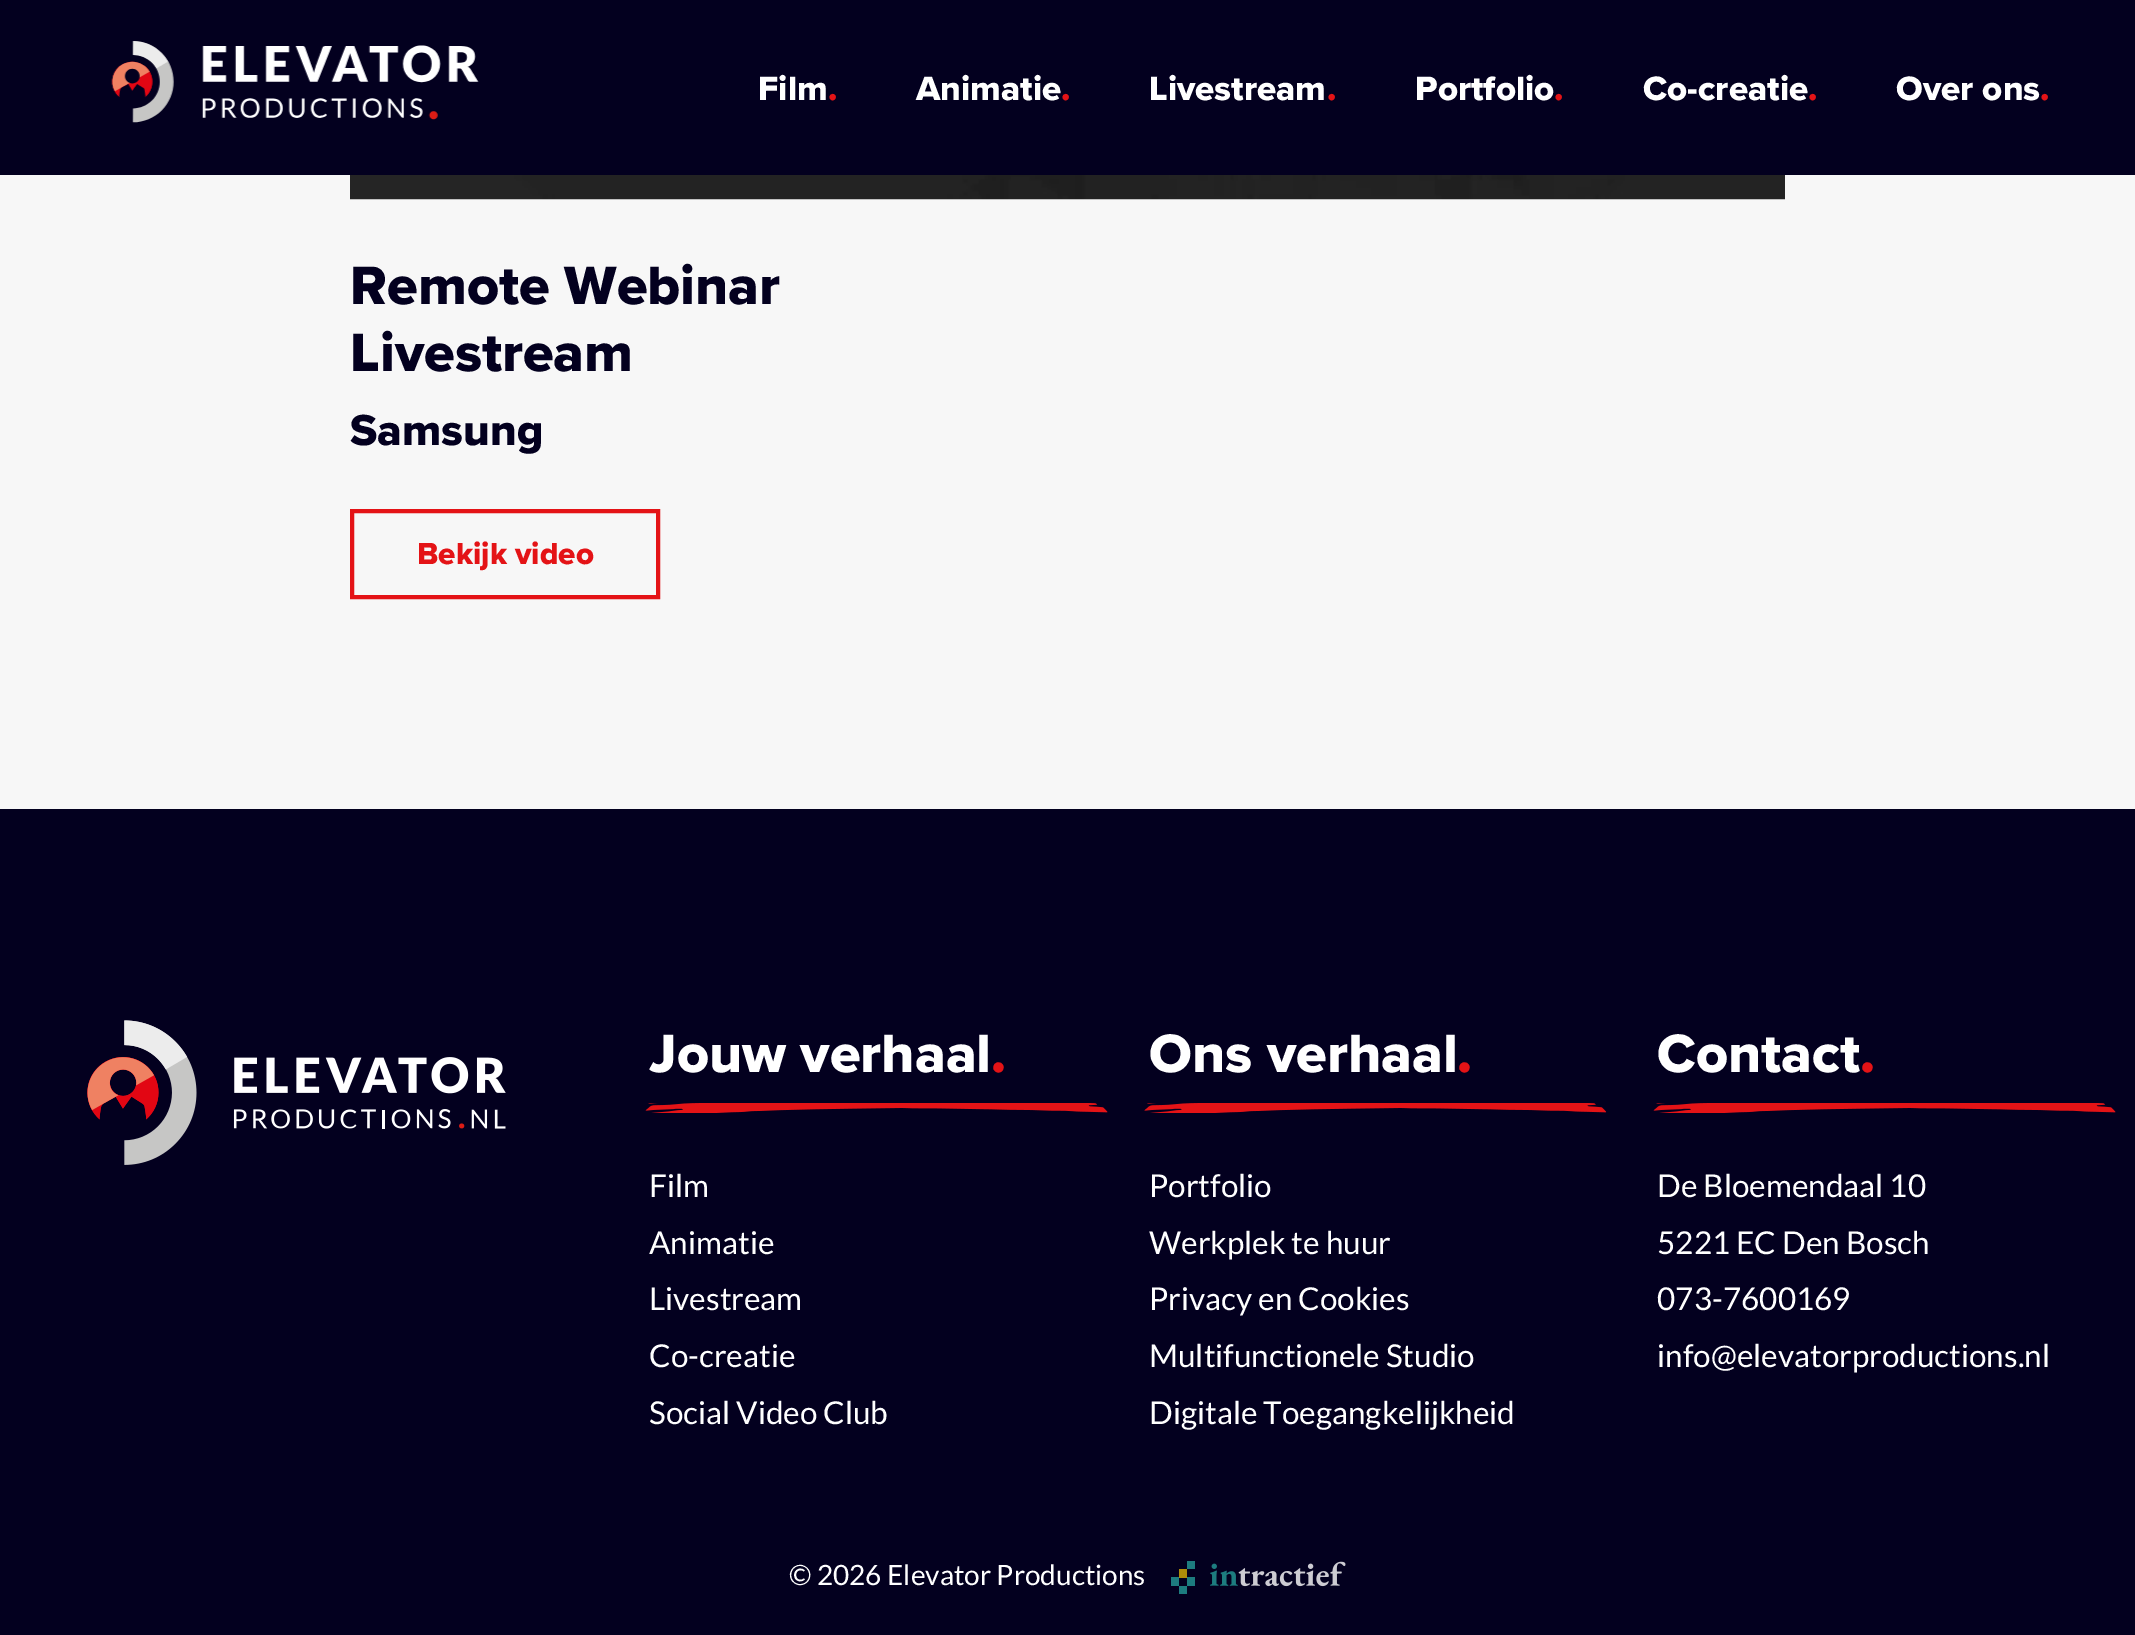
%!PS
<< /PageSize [2135 1635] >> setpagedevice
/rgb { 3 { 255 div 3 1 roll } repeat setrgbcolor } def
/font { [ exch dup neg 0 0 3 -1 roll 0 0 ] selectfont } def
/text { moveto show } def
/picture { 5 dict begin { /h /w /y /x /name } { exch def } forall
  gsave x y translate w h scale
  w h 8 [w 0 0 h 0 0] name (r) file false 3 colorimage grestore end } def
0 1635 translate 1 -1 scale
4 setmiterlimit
247 247 247 rgb
0 0 2135 1635 rectfill
3 0 31 rgb
0 0 2135 175 rectfill
(img_01.rgb) 111 41 368 82 picture
(img_02.rgb) 350 175 1435 25 picture
228 19 22 rgb
4 setlinewidth
352 511 306 86 rectstroke
3 0 31 rgb
0 809 2135 826 rectfill
(img_03.rgb) 87 1020 419 145 picture
(img_04.rgb) 645 1103 463 10 picture
(img_05.rgb) 1144 1103 463 10 picture
(img_04.rgb) 1653 1103 463 10 picture
(img_06.rgb) 1171 1561 175 33 picture
/ProximaNova-ExtraBold 35 font
255 255 255 rgb
(Film) 758 100 text
228 19 22 rgb
(.) 828 100 text
255 255 255 rgb
(Animatie) 916 100 text
228 19 22 rgb
(.) 1061 100 text
255 255 255 rgb
(Livestream) 1149 100 text
228 19 22 rgb
(.) 1327 100 text
255 255 255 rgb
(Portfolio) 1415 100 text
228 19 22 rgb
(.) 1554 100 text
255 255 255 rgb
(Co-creatie) 1643 100 text
228 19 22 rgb
(.) 1808 100 text
255 255 255 rgb
(Over ons) 1896 100 text
228 19 22 rgb
(.) 2040 100 text
/ProximaNova-ExtraBold 56 font
3 0 31 rgb
(Remote Webinar) 350 304 text
(Livestream) 350 371 text
/ProximaNova-ExtraBold 45 font
(Samsung) 350 445 text
/ProximaNova-ExtraBold 31.5 font
228 19 22 rgb
(Bekijk video) 417 564 text
/ProximaNova-ExtraBold 56 font
255 255 255 rgb
(Jouw verhaal) 649 1072 text
228 19 22 rgb
(.) 991 1072 text
/Lato-Regular 31.5 font
255 255 255 rgb
(Film) 649 1197 text
(Animatie) 649 1254 text
(Livestream) 649 1310 text
(Co-creatie) 649 1367 text
(Social Video Club) 649 1424 text
/ProximaNova-ExtraBold 56 font
(Ons verhaal) 1149 1072 text
228 19 22 rgb
(.) 1457 1072 text
/Lato-Regular 31.5 font
255 255 255 rgb
(Portfolio) 1149 1197 text
(Werkplek te huur) 1149 1254 text
(Privacy en Cookies) 1149 1310 text
(Multifunctionele Studio) 1149 1367 text
(Digitale Toegangkelijkheid) 1149 1424 text
/ProximaNova-ExtraBold 56 font
(Contact) 1657 1072 text
228 19 22 rgb
(.) 1860 1072 text
/Lato-Regular 31.5 font
255 255 255 rgb
(De Bloemendaal 10) 1657 1197 text
(5221 EC Den Bosch) 1657 1254 text
(073-7600169) 1657 1310 text
(info@elevatorproductions.nl) 1657 1367 text
/Lato-Regular 28 font
(© 2026 Elevator Productions) 789 1585 text
showpage
